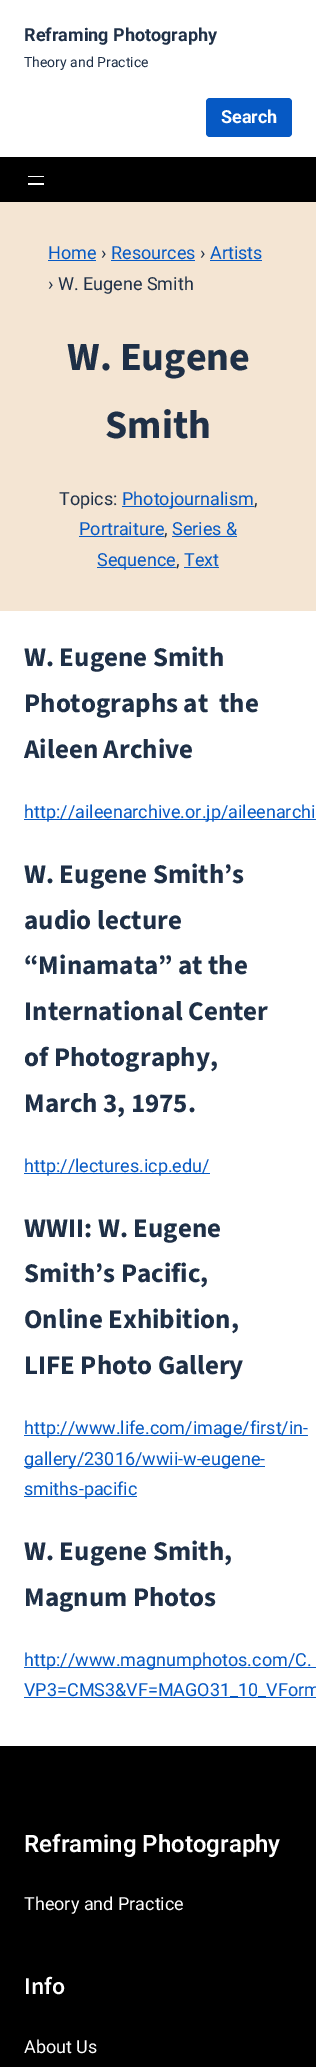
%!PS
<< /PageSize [316 2067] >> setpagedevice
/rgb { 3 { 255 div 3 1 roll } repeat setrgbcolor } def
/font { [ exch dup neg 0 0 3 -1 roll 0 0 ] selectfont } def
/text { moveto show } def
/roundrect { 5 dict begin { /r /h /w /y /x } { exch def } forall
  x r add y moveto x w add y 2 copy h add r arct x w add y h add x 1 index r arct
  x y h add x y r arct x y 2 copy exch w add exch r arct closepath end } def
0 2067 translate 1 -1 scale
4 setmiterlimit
255 255 255 rgb
0 0 316 2067 rectfill
6 89 196 rgb
206 98 86 39 4 roundrect fill
0 0 0 rgb
0 157 316 45 rectfill
255 255 255 rgb
28 176 16 1 rectfill
28 183 16 2 rectfill
244 229 211 rgb
0 202 316 409 rectfill
6 89 196 rgb
48 260 48 1 rectfill
111 260 84 1 rectfill
210 260 52 1 rectfill
122 506 132 1 rectfill
79 536 85 1 rectfill
172 536 65 1 rectfill
97 567 79 1 rectfill
184 567 35 1 rectfill
24 819 292 1 rectfill
24 1173 186 1 rectfill
24 1435 284 1 rectfill
24 1466 241 1 rectfill
24 1496 113 1 rectfill
24 1667 292 1 rectfill
24 1697 292 1 rectfill
0 0 0 rgb
0 1746 316 321 rectfill
/Roboto-Bold 18 font
31 48 71 rgb
(Reframing Photography) 24 41 text
/Roboto-Regular 14 font
(Theory and Practice) 24 67 text
/Roboto-Bold 18 font
255 255 255 rgb
(Search) 221 123 text
/Roboto-Regular 18 font
6 89 196 rgb
(Home) 48 259 text
31 48 71 rgb
(›) 101 259 text
6 89 196 rgb
(Resources) 111 259 text
31 48 71 rgb
(›) 200 259 text
6 89 196 rgb
(Artists) 210 259 text
31 48 71 rgb
(› W. Eugene Smith) 48 290 text
/SourceSans3-Bold 40 font
(W. Eugene) 67 370 text
(Smith) 105 438 text
/Roboto-Regular 18 font
(Topics:) 59 505 text
6 89 196 rgb
(Photojournalism) 122 505 text
31 48 71 rgb
(,) 254 505 text
6 89 196 rgb
(Portraiture) 79 535 text
31 48 71 rgb
(,) 164 535 text
6 89 196 rgb
(Series &) 172 535 text
(Sequence) 97 566 text
31 48 71 rgb
(,) 176 566 text
6 89 196 rgb
(Text) 184 566 text
/SourceSans3-Bold 27 font
31 48 71 rgb
(W. Eugene Smith) 24 666 text
(Photographs at  the) 24 712 text
(Aileen Archive) 24 758 text
/Roboto-Regular 18 font
6 89 196 rgb
(http://aileenarchive.or.jp/aileenarchi) 24 818 text
/SourceSans3-Bold 27 font
31 48 71 rgb
(W. Eugene Smith’s) 24 883 text
(audio lecture) 24 929 text
(“Minamata” at the) 24 974 text
(International Center) 24 1020 text
(of Photography,) 24 1066 text
(March 3, 1975.) 24 1112 text
/Roboto-Regular 18 font
6 89 196 rgb
(http://lectures.icp.edu/) 24 1172 text
/SourceSans3-Bold 27 font
31 48 71 rgb
(WWII: W. Eugene) 24 1237 text
(Smith’s Pacific,) 24 1282 text
(Online Exhibition,) 24 1328 text
(LIFE Photo Gallery) 24 1374 text
/Roboto-Regular 18 font
6 89 196 rgb
(http://www.life.com/image/first/in-) 24 1434 text
(gallery/23016/wwii-w-eugene-) 24 1465 text
(smiths-pacific) 24 1495 text
/SourceSans3-Bold 27 font
31 48 71 rgb
(W. Eugene Smith,) 24 1560 text
(Magnum Photos) 24 1606 text
/Roboto-Regular 18 font
6 89 196 rgb
(http://www.magnumphotos.com/C.) 24 1666 text
(VP3=CMS3&VF=MAGO31_10_VForm) 24 1696 text
/Roboto-SemiBold 24 font
255 255 255 rgb
(Reframing Photography) 24 1852 text
/Roboto-Regular 18 font
(Theory and Practice) 24 1910 text
/SourceSans3-SemiBold 24 font
(Info) 24 1994 text
/Roboto-Regular 18 font
(About Us) 24 2053 text
showpage
